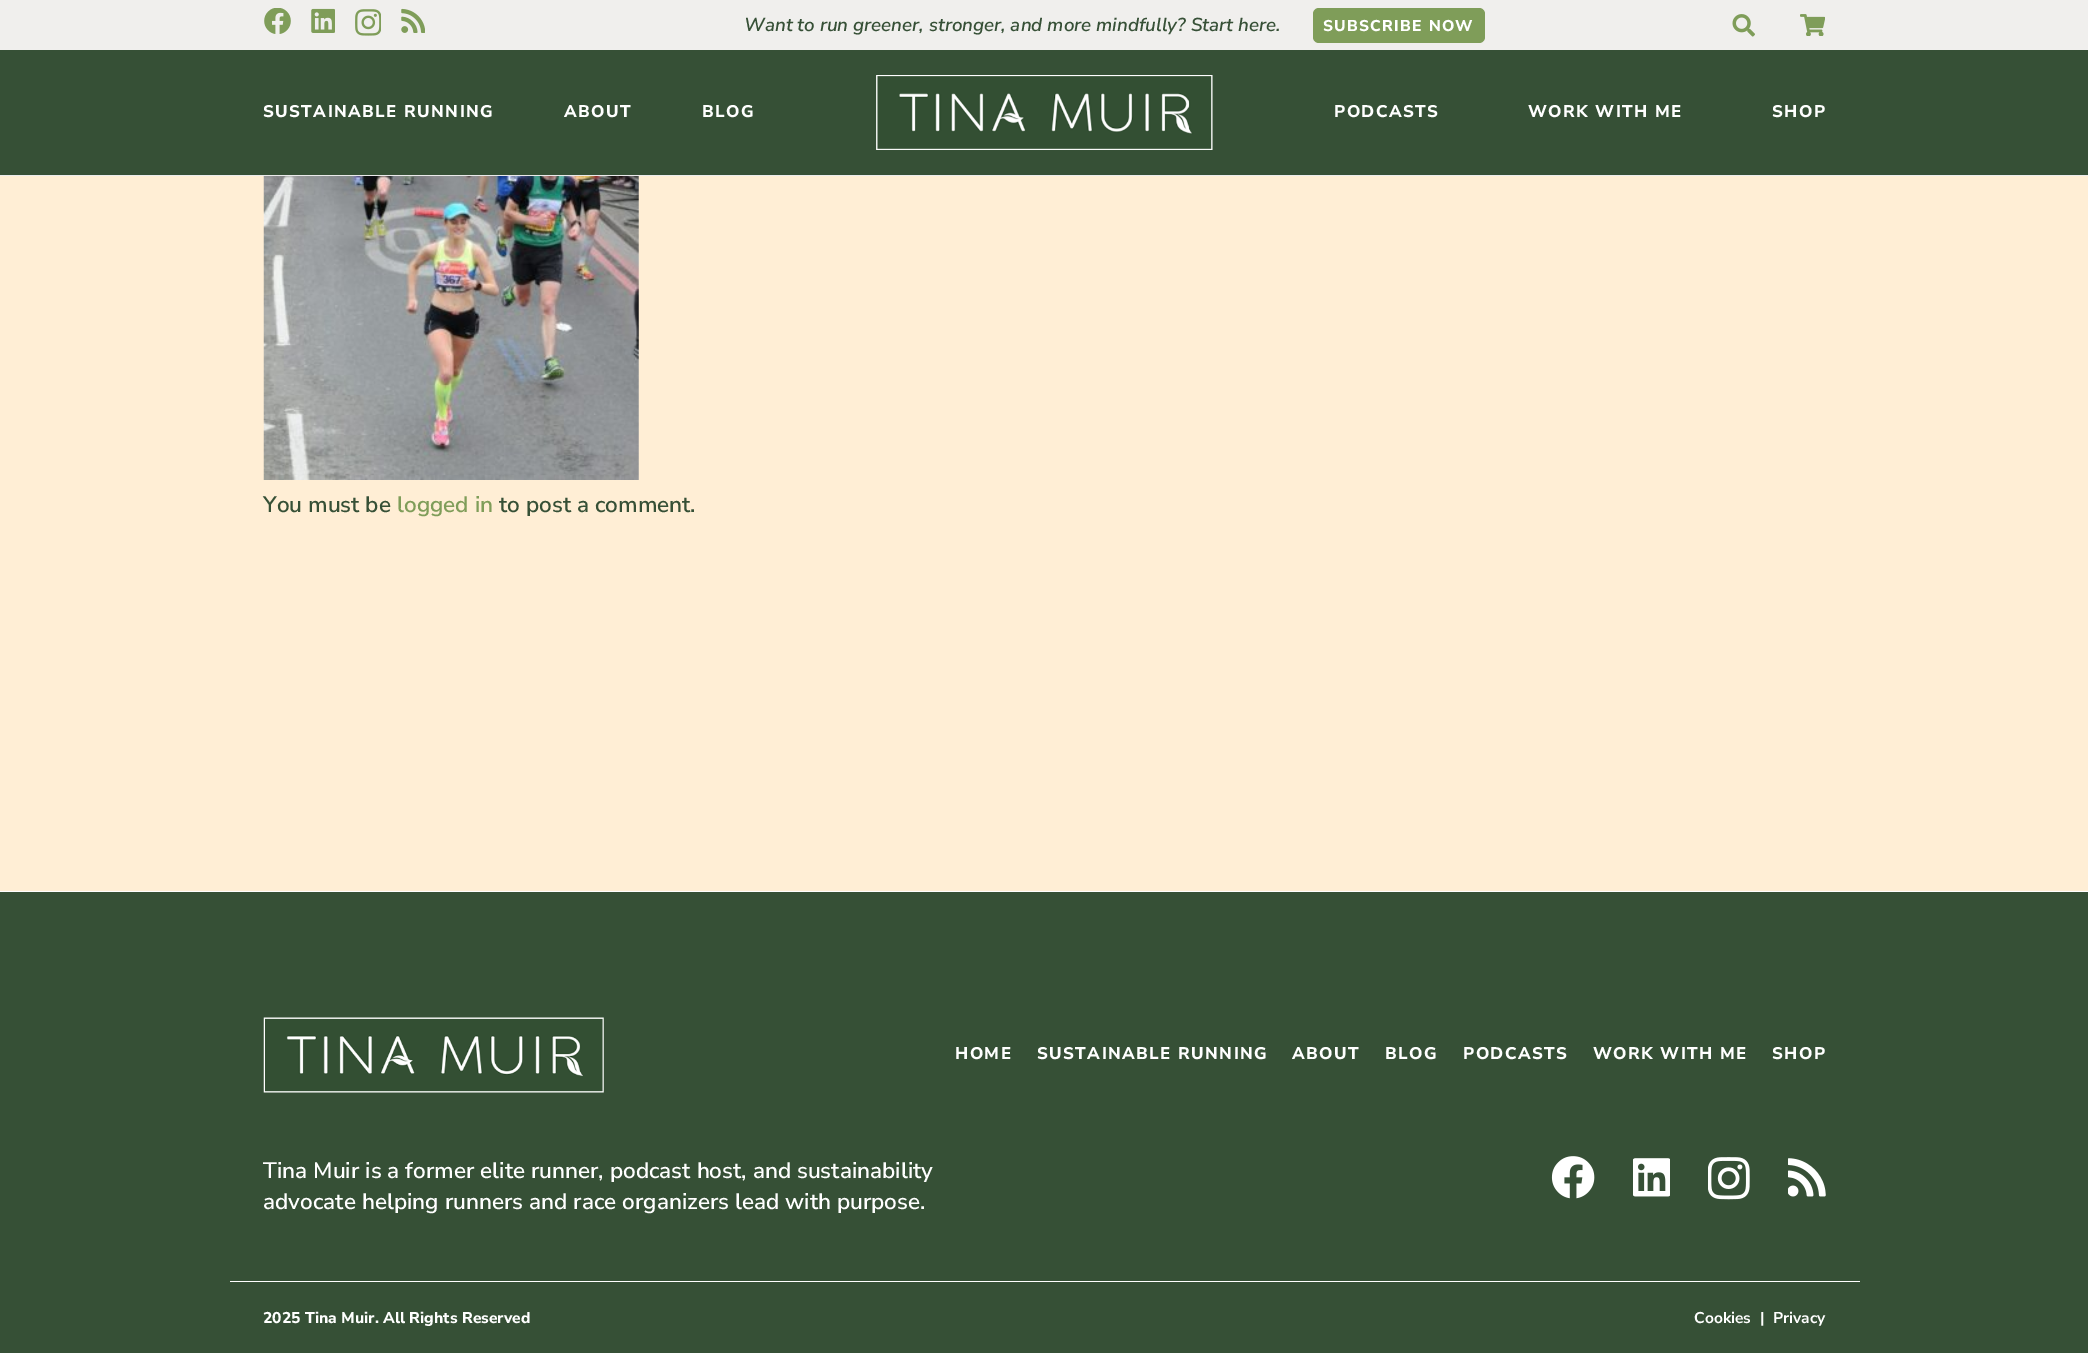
%!PS
<< /PageSize [2088 1353] >> setpagedevice
/rgb { 3 { 255 div 3 1 roll } repeat setrgbcolor } def
/font { [ exch dup neg 0 0 3 -1 roll 0 0 ] selectfont } def
/text { moveto show } def
/roundrect { 5 dict begin { /r /h /w /y /x } { exch def } forall
  x r add y moveto x w add y 2 copy h add r arct x w add y h add x 1 index r arct
  x y h add x y r arct x y 2 copy exch w add exch r arct closepath end } def
/picture { 5 dict begin { /h /w /y /x /name } { exch def } forall
  gsave x y translate w h scale
  w h 8 [w 0 0 h 0 0] name (r) file false 3 colorimage grestore end } def
0 1353 translate 1 -1 scale
4 setmiterlimit
255 238 213 rgb
0 0 2088 1353 rectfill
240 239 237 rgb
0 0 2088 50 rectfill
(img_01.rgb) 264 8 27 26 picture
(img_02.rgb) 311 8 24 25 picture
(img_03.rgb) 355 9 26 27 picture
(img_04.rgb) 401 8 24 25 picture
127 157 89 rgb
1313 8 172 35 6 roundrect fill
(img_05.rgb) 1732 14 23 23 picture
(img_06.rgb) 1800 14 25 22 picture
235 235 235 rgb
0 175 moveto 0 1 rlineto 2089 0 rlineto 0 -125 rlineto 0 124 rlineto closepath fill
54 80 54 rgb
0 50 2088 125 rectfill
(img_07.rgb) 876 75 337 75 picture
(img_08.rgb) 263 176 376 304 picture
0 892 2088 461 rectfill
255 255 255 rgb
0 891 2088 1 rectfill
(img_09.rgb) 263 1017 341 76 picture
(img_10.rgb) 1551 1156 44 43 picture
(img_11.rgb) 1633 1158 37 39 picture
(img_12.rgb) 1708 1157 42 43 picture
(img_13.rgb) 1788 1158 38 39 picture
230 1281 1630 1 rectfill
/NunitoSans-SemiBoldItalic 18.75 font
54 80 54 rgb
(Want to run greener, stronger, and more mindfully? Start here.) 744 31 text
/NunitoSans-ExtraBold 15.6 font
255 255 255 rgb
1323 31 moveto 1.25 0 (SUBSCRIBE NOW) ashow
/NunitoSans-ExtraBold 16.9 font
263 117 moveto 1.4 0 (SUSTAINABLE RUNNING) ashow
564 117 moveto 1.4 0 (ABOUT) ashow
702 117 moveto 1.4 0 (BLOG) ashow
1334 117 moveto 1.4 0 (PODCASTS) ashow
1528 117 moveto 1.4 0 (WORK WITH ME) ashow
1772 117 moveto 1.4 0 (SHOP) ashow
/NunitoSans-SemiBold 22.5 font
54 80 54 rgb
(You must be) 263 512 text
127 157 89 rgb
(logged in) 397 512 text
54 80 54 rgb
(to post a comment.) 499 512 text
/NunitoSans-ExtraBold 16.9 font
255 255 255 rgb
955 1059 moveto 1.4 0 (HOME) ashow
1037 1059 moveto 1.4 0 (SUSTAINABLE RUNNING) ashow
1292 1059 moveto 1.4 0 (ABOUT) ashow
1385 1059 moveto 1.4 0 (BLOG) ashow
1463 1059 moveto 1.4 0 (PODCASTS) ashow
1593 1059 moveto 1.4 0 (WORK WITH ME) ashow
1772 1059 moveto 1.4 0 (SHOP) ashow
/NunitoSans-SemiBold 22.5 font
(Tina Muir is a former elite runner, podcast host, and sustainability) 263 1178 text
(advocate helping runners and race organizers lead with purpose.) 263 1209 text
/NunitoSans-ExtraBold 15.6 font
(2025 Tina Muir. All Rights Reserved) 263 1323 text
/NunitoSans-Bold 15.6 font
(Cookies) 1694 1323 text
(|) 1760 1323 text
(Privacy) 1773 1323 text
showpage
